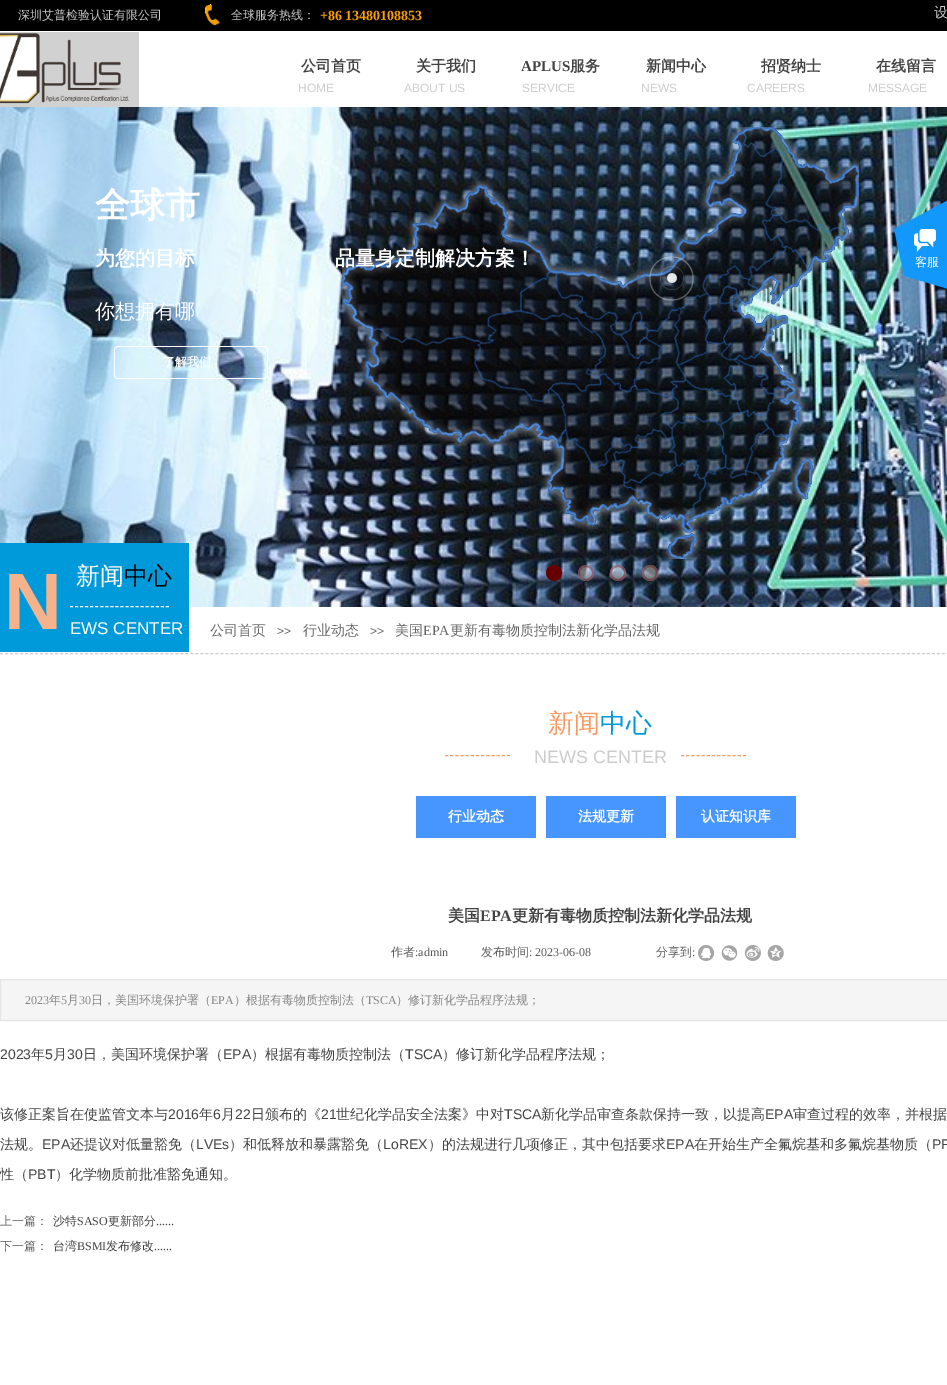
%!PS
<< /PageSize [947 1385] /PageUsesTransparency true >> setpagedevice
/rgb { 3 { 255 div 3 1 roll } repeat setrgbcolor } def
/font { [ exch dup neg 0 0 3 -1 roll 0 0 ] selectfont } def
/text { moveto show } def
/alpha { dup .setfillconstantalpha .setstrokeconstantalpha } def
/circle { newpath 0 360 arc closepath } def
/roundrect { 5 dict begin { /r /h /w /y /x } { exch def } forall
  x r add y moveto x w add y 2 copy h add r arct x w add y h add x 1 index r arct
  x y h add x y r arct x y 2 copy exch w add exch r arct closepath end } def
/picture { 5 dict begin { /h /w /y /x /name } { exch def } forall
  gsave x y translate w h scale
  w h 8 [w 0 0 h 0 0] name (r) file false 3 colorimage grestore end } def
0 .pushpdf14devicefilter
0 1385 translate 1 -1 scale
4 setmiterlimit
255 255 255 rgb
0 0 947 1385 rectfill
0 0 0 rgb
0 0 947 31 rectfill
(img_01.rgb) 205 4 15 22 picture
(img_02.rgb) 0 32 139 75 picture
(img_03.rgb) 0 107 947 500 picture
102 0 0 rgb
554 573 7 circle gsave fill grestore
2 setlinewidth
stroke
0.4 alpha
255 255 255 rgb
586 573 8 circle fill
102 0 0 rgb
586 573 7 circle stroke
255 255 255 rgb
618 573 8 circle fill
102 0 0 rgb
618 573 7 circle stroke
255 255 255 rgb
650 573 8 circle fill
102 0 0 rgb
650 573 7 circle stroke
1 alpha
(img_04.rgb) 342 127 517 432 picture
(img_05.rgb) 649 256 45 45 picture
(img_06.rgb) 660 266 24 24 picture
(img_07.rgb) 667 273 10 10 picture
255 255 255 rgb
0.8 setlinewidth
114.4 346.4 153.2 32.2 3.6 roundrect stroke
0 154 218 rgb
0 543 189 109 rectfill
255 255 255 rgb
1 setlinewidth
[3 2.05] 0 setdash
70 606.5 moveto 99 0 rlineto stroke
204 204 204 rgb
[3 2.01] 0 setdash
0 653.5 moveto 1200 0 rlineto stroke
249 154 98 rgb
[3 2.17] 0 setdash
445 755.5 moveto 65 0 rlineto stroke
681 755.5 moveto 65 0 rlineto stroke
71 150 255 rgb
416 796 120 42 rectfill
546 796 120 42 rectfill
676 796 120 42 rectfill
(img_08.rgb) 698 945 17 16 picture
(img_09.rgb) 721 945 17 16 picture
(img_10.rgb) 744 945 17 16 picture
(img_11.rgb) 767 945 17 16 picture
245 245 245 rgb
0.5 979.5 moveto 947 0 rlineto 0 41 rlineto -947 0 rlineto closepath gsave fill grestore
229 229 229 rgb
[] 0 setdash
stroke
(img_12.rgb) 894 200 53 89 picture
/WenQuanYiZenHei-Medium 12 font
204 204 204 rgb
(深圳艾普检验认证有限公司) 18 19 text
(全球服务热线：) 231 19 text
/LiberationSerif-Bold 14 font
251 158 3 rgb
(+86 13480108853) 320 20 text
/WenQuanYiZenHei-Medium 14 font
204 204 204 rgb
(设) 934 17 text
/WenQuanYiZenHei-Bold 15 font
67 67 67 rgb
(公司首页) 301 71 text
(关于我们) 416 71 text
/LiberationSerif-Bold 15 font
(APLUS) 521 71 text
/WenQuanYiZenHei-Bold 15 font
(服务) 570 71 text
(新闻中心) 646 71 text
(招贤纳士) 761 71 text
(在线留言) 876 71 text
/LiberationSans-Regular 12 font
204 204 204 rgb
(HOME                     ABOUT US) 298 92 text
(SERVICE) 522 92 text
(NEWS) 641 92 text
(CAREERS) 747 92 text
(MESSAGE) 868 92 text
/WenQuanYiZenHei-Bold 35 font
255 255 255 rgb
(全球市) 95 217 text
/WenQuanYiZenHei-Bold 20 font
(为您的目标) 95 265 text
(品量身定制解决方案！) 335 265 text
/WenQuanYiZenHei-Medium 20 font
(你想拥有哪) 95 318 text
/WenQuanYiZenHei-Bold 12 font
(了解我们) 163 366 text
/LiberationSans-Bold 80 font
246 179 139 rgb
(N) 4 629 text
/WenQuanYiZenHei-Medium 24 font
255 255 255 rgb
(新闻) 76 584 text
0 0 0 rgb
(中心) 124 584 text
/LiberationSans-Regular 17 font
255 255 255 rgb
(EWS CENTER) 70 634 text
/WenQuanYiZenHei-Medium 14 font
102 102 102 rgb
(公司首页) 210 635 text
/LiberationSans-Regular 12 font
(>>) 277 635 text
/WenQuanYiZenHei-Medium 14 font
(行业动态) 303 635 text
/LiberationSans-Regular 12 font
(>>) 370 635 text
/WenQuanYiZenHei-Medium 14 font
(美国) 395 635 text
/LiberationSerif-Regular 14 font
(EPA) 423 635 text
/WenQuanYiZenHei-Medium 14 font
(更新有毒物质控制法新化学品法规) 450 635 text
/WenQuanYiZenHei-Medium 26 font
249 154 98 rgb
(新闻) 548 732 text
0 154 218 rgb
(中心) 600 732 text
/LiberationSans-Regular 18 font
204 204 204 rgb
(NEWS CENTER) 534 763 text
/WenQuanYiZenHei-Bold 14 font
255 255 255 rgb
(行业动态) 448 821 text
(法规更新) 578 821 text
(认证知识库) 701 821 text
/WenQuanYiZenHei-Bold 16 font
67 67 67 rgb
(美国) 448 921 text
/LiberationSerif-Bold 16 font
(EPA) 480 921 text
/WenQuanYiZenHei-Bold 16 font
(更新有毒物质控制法新化学品法规) 512 921 text
/WenQuanYiZenHei-Medium 12 font
89 89 89 rgb
(作者) 391 956 text
/LiberationSerif-Regular 12 font
(:admin) 415 956 text
/WenQuanYiZenHei-Medium 12 font
(发布时间) 481 956 text
/LiberationSerif-Regular 12 font
(: 2023-06-08) 529 956 text
/WenQuanYiZenHei-Medium 12 font
(分享到) 656 956 text
/LiberationSerif-Regular 12 font
(:) 692 956 text
134 134 134 rgb
(2023) 25 1004 text
/WenQuanYiZenHei-Medium 12 font
(年) 49 1004 text
/LiberationSerif-Regular 12 font
(5) 61 1004 text
/WenQuanYiZenHei-Medium 12 font
(月) 67 1004 text
/LiberationSerif-Regular 12 font
(30) 79 1004 text
/WenQuanYiZenHei-Medium 12 font
(日，美国环境保护署（) 91 1004 text
/LiberationSerif-Regular 12 font
(EPA) 211 1004 text
/WenQuanYiZenHei-Medium 12 font
(）根据有毒物质控制法（) 234 1004 text
/LiberationSerif-Regular 12 font
(TSCA) 366 1004 text
/WenQuanYiZenHei-Medium 12 font
(）修订新化学品程序法规；) 396 1004 text
/LiberationSans-Regular 14 font
67 67 67 rgb
(2023) 0 1059 text
/WenQuanYiZenHei-Medium 14 font
(年) 31 1059 text
/LiberationSans-Regular 14 font
(5) 45 1059 text
/WenQuanYiZenHei-Medium 14 font
(月) 53 1059 text
/LiberationSans-Regular 14 font
(30) 67 1059 text
/WenQuanYiZenHei-Medium 14 font
(日，美国环境保护署（) 83 1059 text
/LiberationSans-Regular 14 font
(EPA) 223 1059 text
/WenQuanYiZenHei-Medium 14 font
(）根据有毒物质控制法（) 251 1059 text
/LiberationSans-Regular 14 font
(TSCA) 405 1059 text
/WenQuanYiZenHei-Medium 14 font
(）修订新化学品程序法规；) 442 1059 text
(该修正案旨在使监管文本与) 0 1119 text
/LiberationSans-Regular 14 font
(2016) 168 1119 text
/WenQuanYiZenHei-Medium 14 font
(年) 199 1119 text
/LiberationSans-Regular 14 font
(6) 213 1119 text
/WenQuanYiZenHei-Medium 14 font
(月) 221 1119 text
/LiberationSans-Regular 14 font
(22) 235 1119 text
/WenQuanYiZenHei-Medium 14 font
(日颁布的《) 251 1119 text
/LiberationSans-Regular 14 font
(21) 321 1119 text
/WenQuanYiZenHei-Medium 14 font
(世纪化学品安全法案》中对) 336 1119 text
/LiberationSans-Regular 14 font
(TSCA) 504 1119 text
/WenQuanYiZenHei-Medium 14 font
(新化学品审查条款保持一致，以提高) 541 1119 text
/LiberationSans-Regular 14 font
(EPA) 765 1119 text
/WenQuanYiZenHei-Medium 14 font
(审查过程的效率，并根据) 793 1119 text
(法规。) 0 1149 text
/LiberationSans-Regular 14 font
(EPA) 42 1149 text
/WenQuanYiZenHei-Medium 14 font
(还提议对低量豁免（) 70 1149 text
/LiberationSans-Regular 14 font
(LVEs) 196 1149 text
/WenQuanYiZenHei-Medium 14 font
(）和低释放和暴露豁免（) 229 1149 text
/LiberationSans-Regular 14 font
(LoREX) 383 1149 text
/WenQuanYiZenHei-Medium 14 font
(）的法规进行几项修正，其中包括要求) 428 1149 text
/LiberationSans-Regular 14 font
(EPA) 666 1149 text
/WenQuanYiZenHei-Medium 14 font
(在开始生产全氟烷基和多氟烷基物质（) 694 1149 text
/LiberationSans-Regular 14 font
(PF) 932 1149 text
/WenQuanYiZenHei-Medium 14 font
(性（) 0 1179 text
/LiberationSans-Regular 14 font
(PBT) 28 1179 text
/WenQuanYiZenHei-Medium 14 font
(）化学物质前批准豁免通知。) 55 1179 text
/WenQuanYiZenHei-Medium 12 font
89 89 89 rgb
(上一篇：) 0 1225 text
67 67 67 rgb
(沙特) 53 1225 text
/LiberationSerif-Regular 12 font
(SASO) 77 1225 text
/WenQuanYiZenHei-Medium 12 font
(更新部分) 108 1225 text
/LiberationSerif-Regular 12 font
(......) 156 1225 text
/WenQuanYiZenHei-Medium 12 font
89 89 89 rgb
(下一篇：) 0 1250 text
67 67 67 rgb
(台湾) 53 1250 text
/LiberationSerif-Regular 12 font
(BSMI) 77 1250 text
/WenQuanYiZenHei-Medium 12 font
(发布修改) 106 1250 text
/LiberationSerif-Regular 12 font
(......) 154 1250 text
/WenQuanYiZenHei-Medium 12 font
255 255 255 rgb
(客服) 915 266 text
.poppdf14devicefilter showpage
